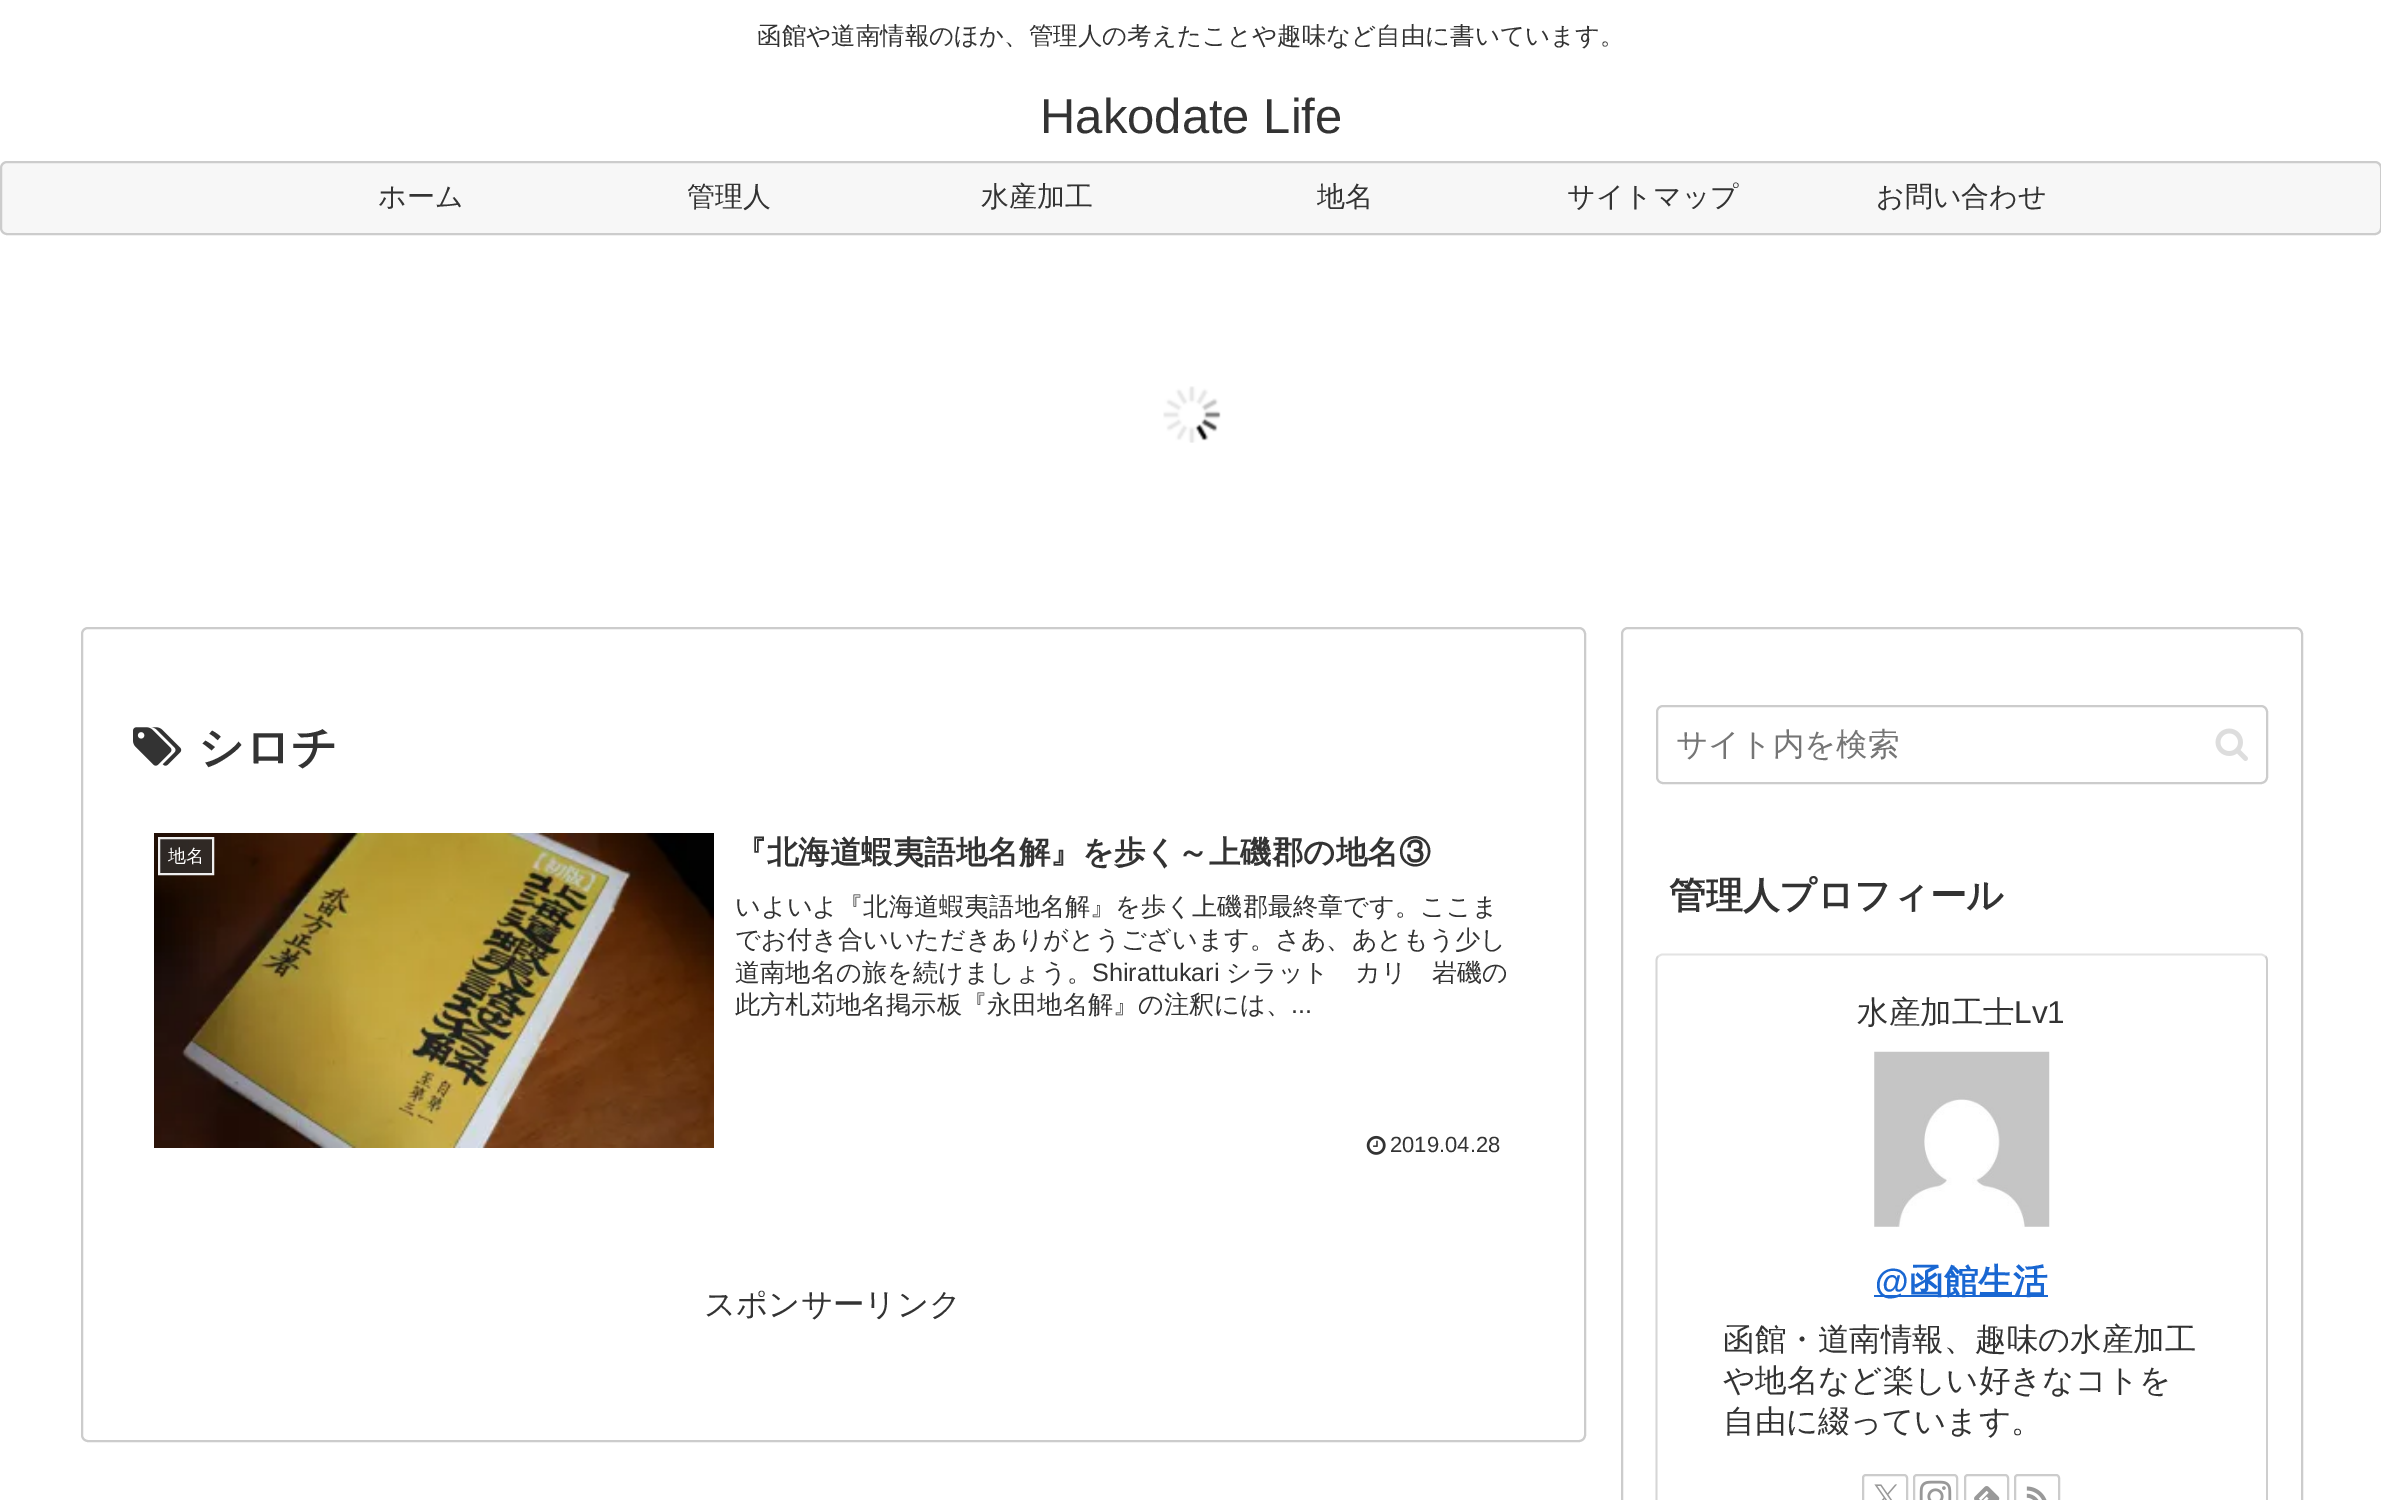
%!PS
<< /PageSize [2381 1500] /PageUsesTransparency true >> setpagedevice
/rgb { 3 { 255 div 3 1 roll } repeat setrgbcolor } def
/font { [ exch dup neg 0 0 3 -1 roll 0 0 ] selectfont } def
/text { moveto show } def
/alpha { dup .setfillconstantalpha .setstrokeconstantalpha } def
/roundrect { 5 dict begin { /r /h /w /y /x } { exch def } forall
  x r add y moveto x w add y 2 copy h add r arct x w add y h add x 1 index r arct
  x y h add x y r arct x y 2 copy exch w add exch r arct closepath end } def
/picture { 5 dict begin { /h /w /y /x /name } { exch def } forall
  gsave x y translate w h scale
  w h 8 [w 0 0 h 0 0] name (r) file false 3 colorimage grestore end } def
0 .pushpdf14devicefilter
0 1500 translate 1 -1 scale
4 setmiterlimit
255 255 255 rgb
0 0 2381 1500 rectfill
247 247 247 rgb
1 162 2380 72 6 roundrect gsave fill grestore
204 204 204 rgb
2 setlinewidth
stroke
(img_01.rgb) 1163 386 58 57 picture
82 628 1503 813 6 roundrect stroke
(img_02.rgb) 133 727 49 39 picture
(img_03.rgb) 154 833 560 315 picture
0.7 alpha
51 51 51 rgb
159 838 moveto 54 0 rlineto 0 36 rlineto -54 0 rlineto closepath fill
1 alpha
238 238 238 rgb
159 838 moveto 54 0 rlineto 0 36 rlineto -54 0 rlineto closepath stroke
(img_04.rgb) 1366 1135 20 20 picture
204 204 204 rgb
1622 628 680 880 6 roundrect stroke
1657 706 610 77 6 roundrect stroke
(img_05.rgb) 2215 728 33 33 picture
227 227 227 rgb
1.8 setlinewidth
1658 956.5 moveto 1.5 -1 3 -2 4.5 -2 rcurveto 598.5 0 rlineto 1.5 0 3 1 4.5 2 rcurveto stroke
206 206 206 rgb
2265.5 956.5 moveto 1 1 1.5 2.5 1.5 4.5 rcurveto 0 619 rlineto 0 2 -0.5 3.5 -1.5 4.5 rcurveto stroke
214 214 214 rgb
1658 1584.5 moveto -1 -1 -1.5 -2.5 -1.5 -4.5 rcurveto 0 -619 rlineto 0 -2 0.5 -3.5 1.5 -4.5 rcurveto stroke
(img_06.rgb) 1874 1051 176 176 picture
25 103 210 rgb
1874 1295 174 2 rectfill
204 204 204 rgb
2 setlinewidth
1863 1475 44 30 3 roundrect stroke
(img_07.rgb) 1874 1484 23 16 picture
1914 1475 43 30 3 roundrect stroke
(img_08.rgb) 1919 1480 33 20 picture
1965 1475 43 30 3 roundrect stroke
(img_09.rgb) 1974 1486 26 14 picture
2015 1475 44 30 3 roundrect stroke
(img_10.rgb) 2026 1486 21 14 picture
/WenQuanYiZenHei-Medium 24.5 font
51 51 51 rgb
(函館や道南情報のほか、管理人の考えたことや趣味など自由に書いています。) 757 44 text
/LiberationSans-Regular 49 font
(Hakodate Life) 1040 133 text
/WenQuanYiZenHei-Medium 28 font
(ホーム) 378 206 text
(管理人) 687 206 text
(水産加工) 981 206 text
(地名) 1317 206 text
(サイトマップ) 1567 206 text
(お問い合わせ) 1876 206 text
/WenQuanYiZenHei-Bold 45.5 font
(シロチ) 198 763 text
/WenQuanYiZenHei-Medium 18 font
255 255 255 rgb
(地名) 168 862 text
/WenQuanYiZenHei-Bold 31.5 font
51 51 51 rgb
(『北海道蝦夷語地名解』を歩く～上磯郡の地名③) 735 863 text
/WenQuanYiZenHei-Medium 25.2 font
(いよいよ『北海道蝦夷語地名解』を歩く上磯郡最終章です。ここま) 735 915 text
(でお付き合いいただきありがとうございます。さあ、あともう少し) 735 948 text
(道南地名の旅を続けましょう。) 735 981 text
/LiberationSans-Regular 25.2 font
(Shirattukari) 1092 981 text
/WenQuanYiZenHei-Medium 25.2 font
(シラット) 1226 981 text
(゚) 1355 981 text
(カリ　岩磯の) 1355 981 text
(此方札苅地名掲示板『永田地名解』の注釈には、) 735 1013 text
/LiberationSans-Regular 25.2 font
(...) 1291 1013 text
/LiberationSans-Regular 22 font
(2019.04.28) 1390 1152 text
/WenQuanYiZenHei-Medium 31.5 font
(スポンサーリンク) 704 1315 text
117 117 117 rgb
(サイト内を検索) 1676 755 text
/WenQuanYiZenHei-Bold 36.75 font
51 51 51 rgb
(管理人プロフィール) 1669 908 text
/WenQuanYiZenHei-Medium 31.5 font
(水産加工士) 1857 1023 text
/LiberationSans-Regular 31.5 font
(Lv1) 2014 1023 text
/LiberationSans-Bold 34.5 font
25 103 210 rgb
(@) 1875 1293 text
/WenQuanYiZenHei-Bold 34.5 font
(函館生活) 1909 1293 text
/WenQuanYiZenHei-Medium 31.5 font
51 51 51 rgb
(函館・道南情報、趣味の水産加工) 1723 1350 text
(や地名など楽しい好きなコトを) 1723 1391 text
(自由に綴っています。) 1723 1432 text
.poppdf14devicefilter showpage
